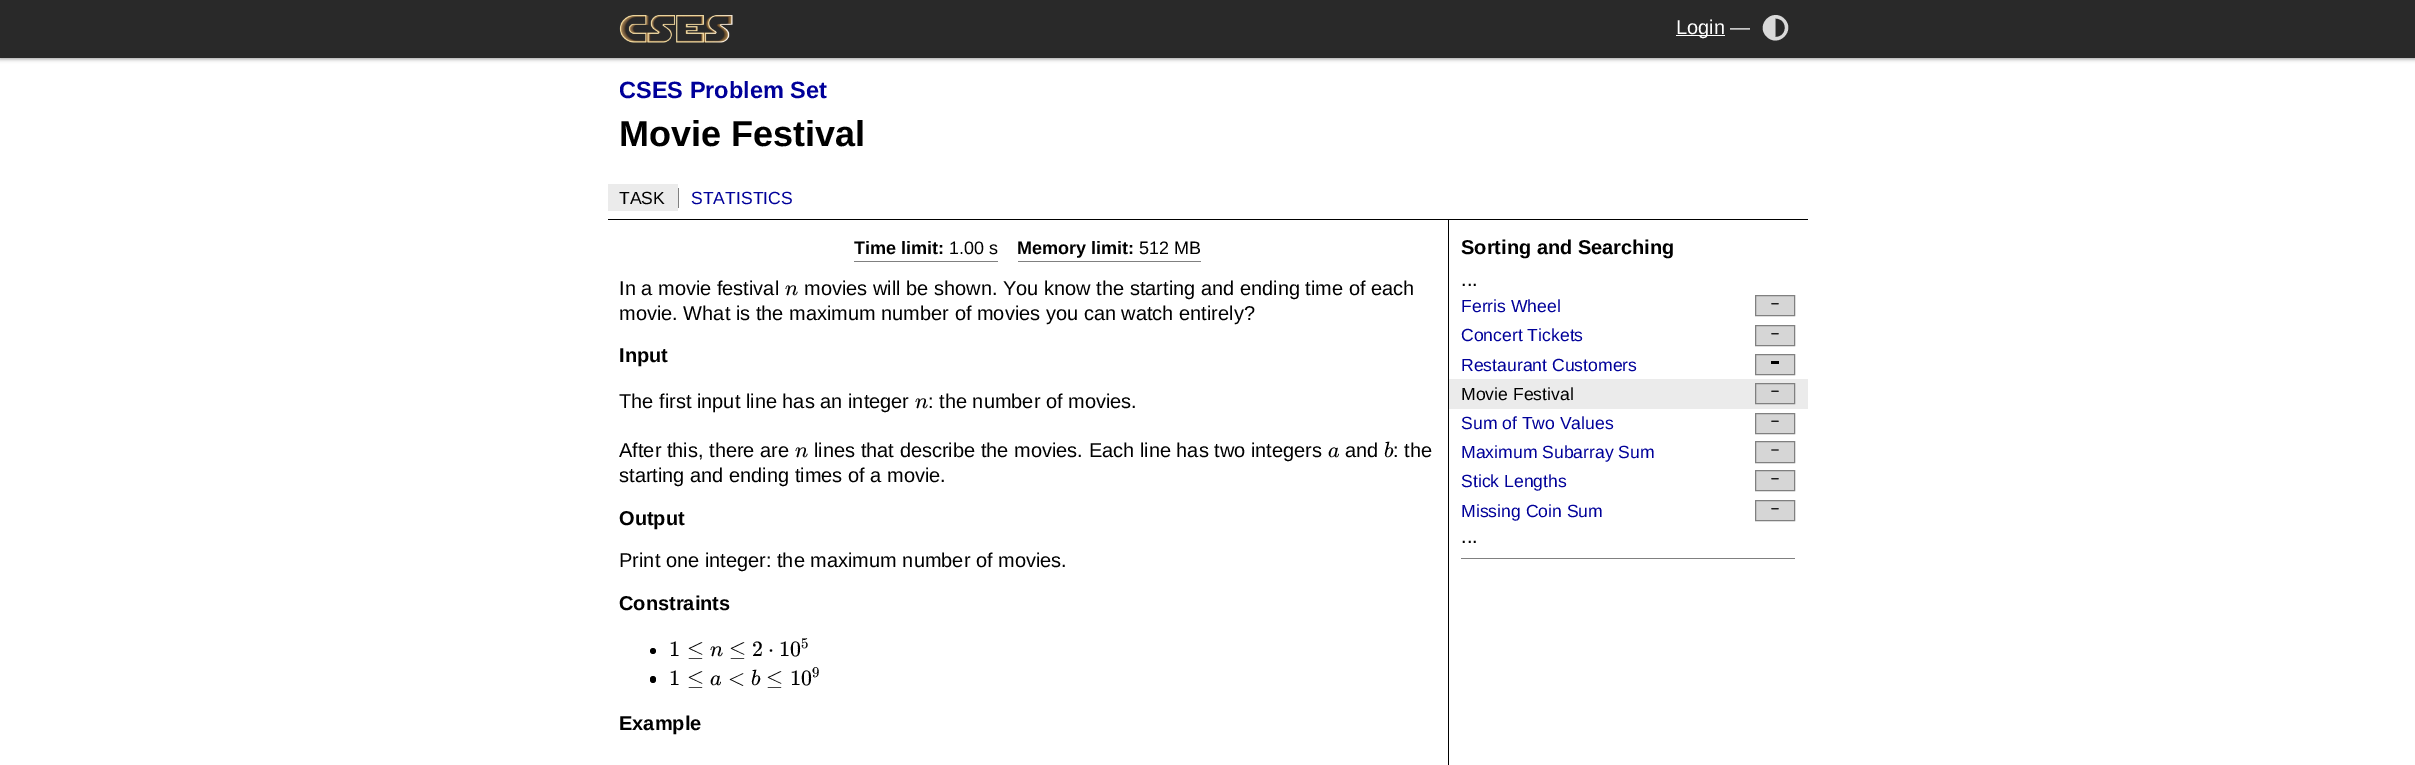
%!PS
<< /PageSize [2415 765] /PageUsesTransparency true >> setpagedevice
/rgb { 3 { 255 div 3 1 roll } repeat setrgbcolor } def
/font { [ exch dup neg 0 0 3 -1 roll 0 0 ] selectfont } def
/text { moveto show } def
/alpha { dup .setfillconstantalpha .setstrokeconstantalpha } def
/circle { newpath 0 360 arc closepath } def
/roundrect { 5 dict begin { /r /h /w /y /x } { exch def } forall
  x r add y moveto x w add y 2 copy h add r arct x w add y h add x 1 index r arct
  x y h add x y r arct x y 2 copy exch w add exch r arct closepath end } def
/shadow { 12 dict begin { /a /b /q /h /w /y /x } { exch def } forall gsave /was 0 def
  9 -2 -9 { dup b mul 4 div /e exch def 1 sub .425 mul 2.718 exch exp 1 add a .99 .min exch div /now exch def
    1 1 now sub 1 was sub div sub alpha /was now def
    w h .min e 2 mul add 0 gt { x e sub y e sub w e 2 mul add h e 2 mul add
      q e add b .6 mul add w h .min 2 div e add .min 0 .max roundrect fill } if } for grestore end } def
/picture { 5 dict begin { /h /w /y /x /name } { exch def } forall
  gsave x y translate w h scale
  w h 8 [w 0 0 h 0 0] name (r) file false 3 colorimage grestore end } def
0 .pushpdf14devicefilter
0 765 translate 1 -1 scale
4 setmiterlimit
255 255 255 rgb
0 0 2415 765 rectfill
0 0 0 rgb
0 1 2415 58 0 2 0.4 shadow
41 41 41 rgb
0 0 2415 58 rectfill
(img_01.rgb) 619 15 114 28 picture
255 255 255 rgb
1676 35 49 1 rectfill
217 217 217 rgb
1766.5 36.5 moveto -11.5 -11.5 6 -29.5 18 -17.5 rcurveto 11.5 11.5 -6 29.5 -18 17.5 rcurveto closepath 1775.5 37 moveto 12.5 0 12.5 -18.5 0 -18.5 rcurveto closepath fill
0 0 0 rgb
608 219 1200 1 rectfill
128 128 128 rgb
678 188 1 20 rectfill
235 235 235 rgb
608 184 70 27 rectfill
128 128 128 rgb
854 261 144 1 rectfill
1018 261 183 1 rectfill
0 0 0 rgb
653 651 3 circle fill
650 676 6 7 3 roundrect fill
1448 220 1 545 rectfill
214 214 214 rgb
1755.5 295.5 moveto 39 0 rlineto 0 20 rlineto -39 0 rlineto closepath gsave fill grestore
128 128 128 rgb
stroke
(img_02.rgb) 1771 303 8 2 picture
214 214 214 rgb
1755.5 325.5 moveto 39 0 rlineto 0 20 rlineto -39 0 rlineto closepath gsave fill grestore
128 128 128 rgb
stroke
(img_02.rgb) 1771 333 8 2 picture
214 214 214 rgb
1755.5 354.5 moveto 39 0 rlineto 0 20 rlineto -39 0 rlineto closepath gsave fill grestore
128 128 128 rgb
stroke
0 0 0 rgb
1771 361 8 3 rectfill
235 235 235 rgb
1449 379 359 30 rectfill
214 214 214 rgb
1755.5 383.5 moveto 39 0 rlineto 0 20 rlineto -39 0 rlineto closepath gsave fill grestore
128 128 128 rgb
stroke
(img_03.rgb) 1771 390 8 2 picture
214 214 214 rgb
1755.5 413.5 moveto 39 0 rlineto 0 20 rlineto -39 0 rlineto closepath gsave fill grestore
128 128 128 rgb
stroke
(img_03.rgb) 1771 420 8 2 picture
214 214 214 rgb
1755.5 441.5 moveto 39 0 rlineto 0 21 rlineto -39 0 rlineto closepath gsave fill grestore
128 128 128 rgb
stroke
(img_04.rgb) 1771 449 8 2 picture
214 214 214 rgb
1755.5 470.5 moveto 39 0 rlineto 0 20 rlineto -39 0 rlineto closepath gsave fill grestore
128 128 128 rgb
stroke
(img_02.rgb) 1771 478 8 2 picture
214 214 214 rgb
1755.5 500.5 moveto 39 0 rlineto 0 20 rlineto -39 0 rlineto closepath gsave fill grestore
128 128 128 rgb
stroke
(img_02.rgb) 1771 508 8 2 picture
1461 558 334 1 rectfill
/LiberationSans-Regular 20 font
255 255 255 rgb
(Login —) 1676 34 text
/LiberationSans-Bold 23.5 font
0 0 153 rgb
(CSES Problem Set) 619 98 text
/LiberationSans-Bold 36 font
0 0 0 rgb
(Movie Festival) 619 146 text
/LiberationSans-Regular 17.6 font
(TASK) 619 204 text
0 0 153 rgb
(STATISTICS) 691 204 text
/LiberationSans-Bold 18 font
0 0 0 rgb
(Time limit:) 854 254 text
/LiberationSans-Regular 18 font
(1.00 s) 949 254 text
/LiberationSans-Bold 18 font
(Memory limit:) 1017 254 text
/LiberationSans-Regular 18 font
(512 MB) 1139 254 text
/LiberationSans-Regular 20 font
(In a movie festival) 619 295 text
/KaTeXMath-Italic 22 font
(n) 785 295 text
/LiberationSans-Regular 20 font
(movies will be shown. You know the starting and ending time of each) 804 295 text
(movie. What is the maximum number of movies you can watch entirely?) 619 320 text
/LiberationSans-Bold 20 font
(Input) 619 362 text
/LiberationSans-Regular 20 font
(The first input line has an integer) 619 408 text
/KaTeXMath-Italic 22 font
(n) 915 408 text
/LiberationSans-Regular 20 font
(: the number of movies.) 928 408 text
(After this, there are) 619 457 text
/KaTeXMath-Italic 22 font
(n) 795 457 text
/LiberationSans-Regular 20 font
(lines that describe the movies. Each line has two integers) 814 457 text
/KaTeXMath-Italic 22 font
(a) 1328 457 text
/LiberationSans-Regular 20 font
(and) 1345 457 text
/KaTeXMath-Italic 22 font
(b) 1384 457 text
/LiberationSans-Regular 20 font
(: the) 1393 457 text
(starting and ending times of a movie.) 619 482 text
/LiberationSans-Bold 20 font
(Output) 619 525 text
/LiberationSans-Regular 20 font
(Print one integer: the maximum number of movies.) 619 567 text
/LiberationSans-Bold 20 font
(Constraints) 619 610 text
/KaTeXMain-Regular 22 font
(1) 669 656 text
(≤) 687 656 text
/KaTeXMath-Italic 22 font
(n) 710 656 text
/KaTeXMain-Regular 22 font
(≤) 729 656 text
(2) 752 656 text
(⋅) 768 656 text
(10) 779 656 text
/KaTeXMain-Regular 15 font
(5) 801 648 text
/KaTeXMain-Regular 22 font
(1) 669 685 text
(≤) 687 685 text
/KaTeXMath-Italic 22 font
(a) 710 685 text
/KaTeXMain-Regular 22 font
(<) 728 685 text
/KaTeXMath-Italic 22 font
(b) 751 685 text
/KaTeXMain-Regular 22 font
(≤) 766 685 text
(10) 790 685 text
/KaTeXMain-Regular 15 font
(9) 812 677 text
/LiberationSans-Bold 20 font
(Example) 619 730 text
(Sorting and Searching) 1461 254 text
/LiberationSans-Regular 20 font
(...) 1461 286 text
/LiberationSans-Regular 17.6 font
0 0 153 rgb
(Ferris Wheel) 1461 312 text
(Concert Tickets) 1461 341 text
(Restaurant Customers) 1461 371 text
0 0 0 rgb
(Movie Festival) 1461 400 text
0 0 153 rgb
(Sum of Two Values) 1461 429 text
(Maximum Subarray Sum) 1461 458 text
(Stick Lengths) 1461 487 text
(Missing Coin Sum) 1461 517 text
/LiberationSans-Regular 20 font
0 0 0 rgb
(...) 1461 543 text
.poppdf14devicefilter showpage
